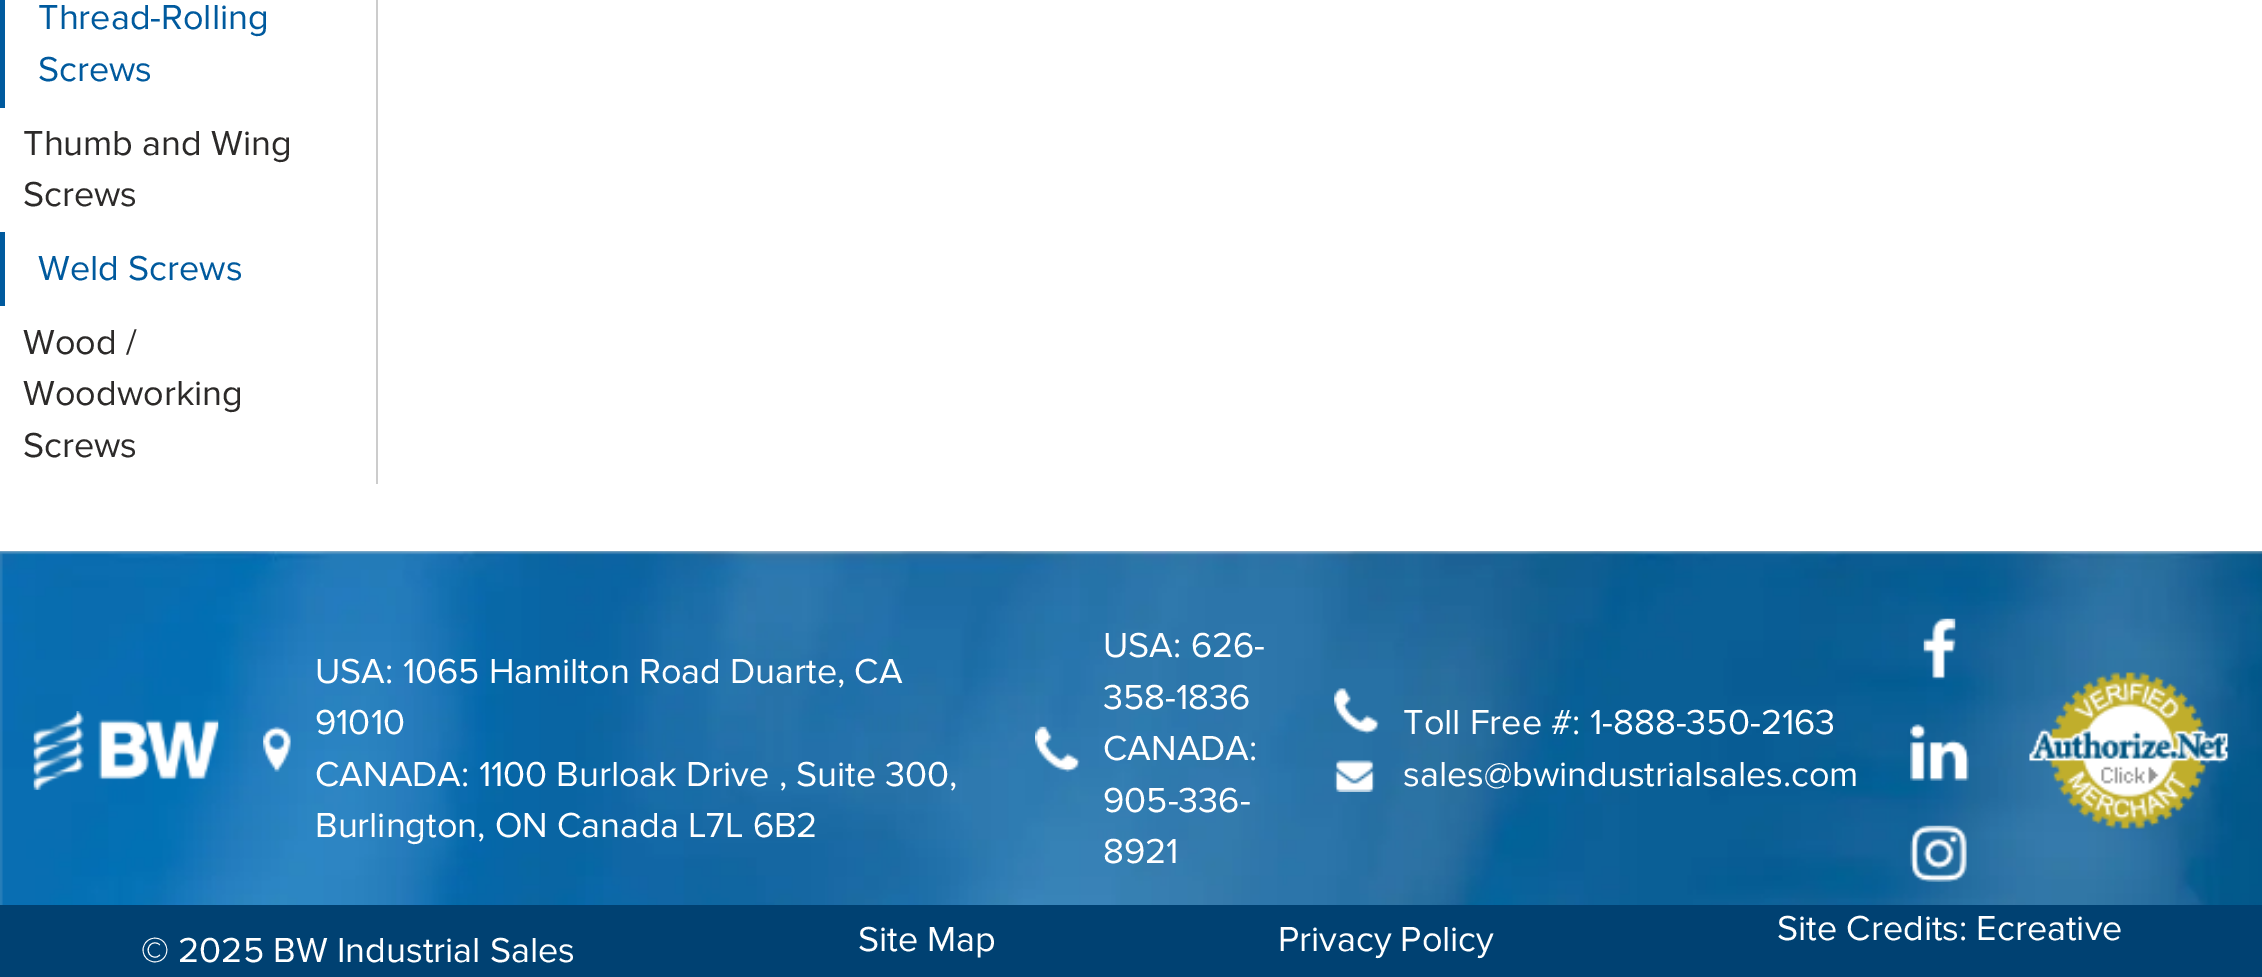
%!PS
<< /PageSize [2262 977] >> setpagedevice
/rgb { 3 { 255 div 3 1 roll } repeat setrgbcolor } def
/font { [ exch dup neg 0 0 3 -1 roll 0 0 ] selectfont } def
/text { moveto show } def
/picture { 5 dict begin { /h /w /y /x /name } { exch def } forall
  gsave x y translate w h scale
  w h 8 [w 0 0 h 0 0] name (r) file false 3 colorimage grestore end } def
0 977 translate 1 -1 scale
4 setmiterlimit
255 255 255 rgb
0 0 2262 977 rectfill
204 204 204 rgb
376 0 2 484 rectfill
0 90 158 rgb
0 0 5 108 rectfill
0 232 5 74 rectfill
221 221 221 rgb
0 551 2262 354 rectfill
(img_01.rgb) 0 551 2262 354 picture
(img_02.rgb) 33 711 186 79 picture
(img_03.rgb) 263 726 28 46 picture
(img_04.rgb) 1035 726 45 46 picture
(img_05.rgb) 1334 688 46 46 picture
(img_06.rgb) 1334 760 41 32 picture
(img_07.rgb) 1923 618 33 62 picture
(img_08.rgb) 1910 724 59 57 picture
(img_09.rgb) 1910 825 57 57 picture
(img_10.rgb) 2029 672 200 157 picture
0 65 114 rgb
0 905 2262 72 rectfill
/ProximaNova-Regular 36 font
0 90 158 rgb
(Thread-Rolling) 38 29 text
(Screws) 38 81 text
44 42 41 rgb
(Thumb and Wing) 23 155 text
(Screws) 23 206 text
0 90 158 rgb
(Weld Screws) 38 280 text
44 42 41 rgb
(Wood /) 23 354 text
(Woodworking) 23 405 text
(Screws) 23 457 text
255 255 255 rgb
(USA: 1065 Hamilton Road Duarte, CA) 315 683 text
(91010) 315 734 text
(CANADA: 1100 Burloak Drive , Suite 300,) 315 786 text
(Burlington, ON Canada L7L 6B2) 315 837 text
(USA: 626-) 1103 657 text
(358-1836) 1103 709 text
(CANADA:) 1103 760 text
(905-336-) 1103 812 text
(8921) 1103 863 text
(Toll Free #: 1-888-350-2163) 1403 734 text
(sales@bwindustrialsales.com) 1403 786 text
(© 2025 BW Industrial Sales) 141 962 text
(Site Map) 858 951 text
(Privacy Policy) 1278 951 text
(Site Credits: Ecreative) 1777 940 text
showpage
